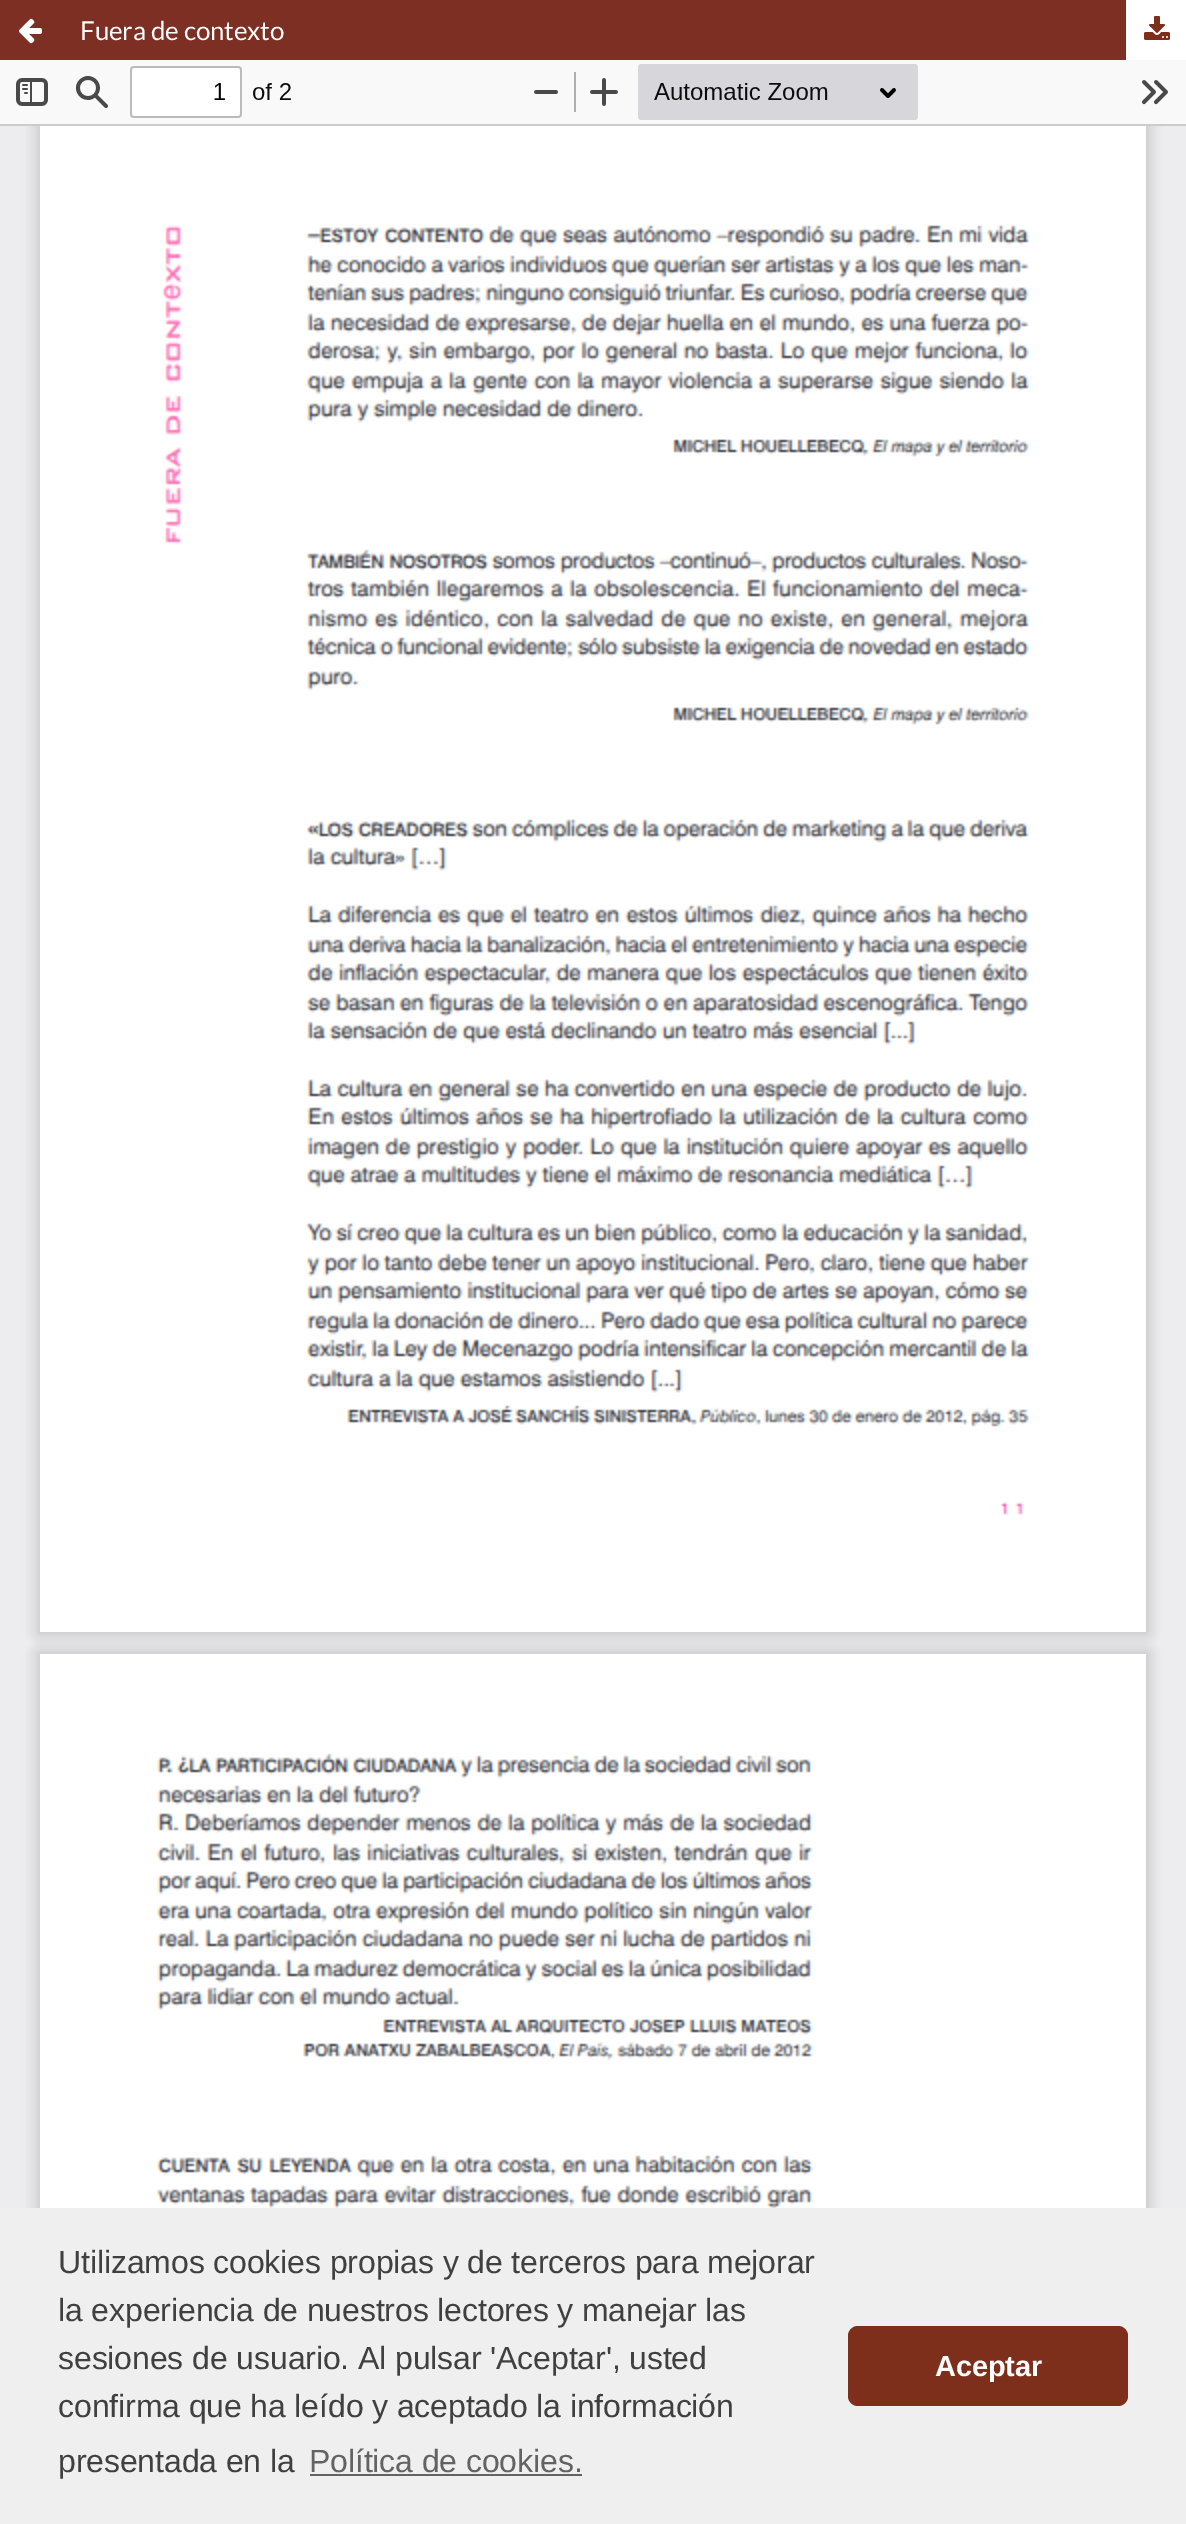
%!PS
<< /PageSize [1186 2524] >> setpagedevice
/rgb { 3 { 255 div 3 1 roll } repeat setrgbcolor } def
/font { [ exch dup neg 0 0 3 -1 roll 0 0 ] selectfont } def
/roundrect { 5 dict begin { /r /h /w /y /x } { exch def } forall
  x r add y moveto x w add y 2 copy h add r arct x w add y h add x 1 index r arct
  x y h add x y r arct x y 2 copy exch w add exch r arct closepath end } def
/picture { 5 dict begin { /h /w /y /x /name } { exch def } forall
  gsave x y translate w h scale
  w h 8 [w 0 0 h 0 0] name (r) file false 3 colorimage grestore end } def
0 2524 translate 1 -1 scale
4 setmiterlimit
255 255 255 rgb
0 0 1186 2524 rectfill
125 47 35 rgb
0 0 1126 60 rectfill
(img_01.rgb) 19 18 23 26 picture
(img_02.rgb) 1144 16 26 24 picture
(img_03.rgb) 0 60 1186 2148 picture
239 239 239 rgb
0 2208 1186 316 rectfill
99 99 99 rgb
310 2474 272 2 rectfill
125 47 27 rgb
848 2326 280 80 10 roundrect fill
/Lato-Regular 26 font
255 255 255 rgb
80 40 moveto -0.12 0 (Fuera de contexto) ashow
/LiberationSans-Regular 32 font
64 64 64 rgb
58 2273 moveto -0.12 0 (Utilizamos cookies propias y de terceros para mejorar) ashow
58 2321 moveto -0.12 0 (la experiencia de nuestros lectores y manejar las) ashow
58 2369 moveto -0.12 0 (sesiones de usuario. Al pulsar 'Aceptar', usted) ashow
58 2417 moveto -0.12 0 (confirma que ha leído y aceptado la información) ashow
58 2472 moveto -0.12 0 (presentada en la) ashow
99 99 99 rgb
309 2472 moveto -0.12 0 (Política de cookies.) ashow
/LiberationSans-Bold 29 font
255 255 255 rgb
935 2376 moveto -0.12 0 (Aceptar) ashow
showpage
